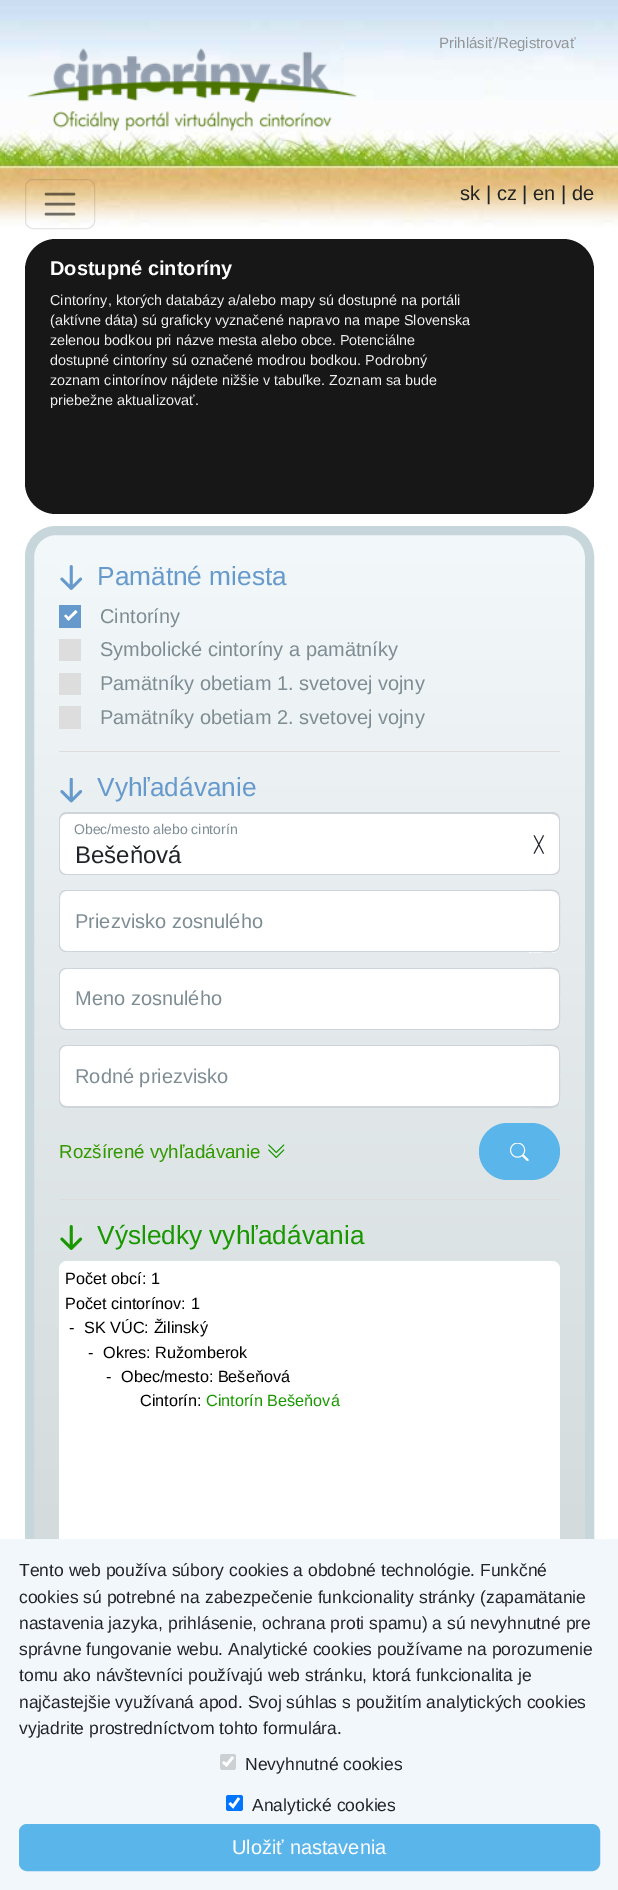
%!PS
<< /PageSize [618 1890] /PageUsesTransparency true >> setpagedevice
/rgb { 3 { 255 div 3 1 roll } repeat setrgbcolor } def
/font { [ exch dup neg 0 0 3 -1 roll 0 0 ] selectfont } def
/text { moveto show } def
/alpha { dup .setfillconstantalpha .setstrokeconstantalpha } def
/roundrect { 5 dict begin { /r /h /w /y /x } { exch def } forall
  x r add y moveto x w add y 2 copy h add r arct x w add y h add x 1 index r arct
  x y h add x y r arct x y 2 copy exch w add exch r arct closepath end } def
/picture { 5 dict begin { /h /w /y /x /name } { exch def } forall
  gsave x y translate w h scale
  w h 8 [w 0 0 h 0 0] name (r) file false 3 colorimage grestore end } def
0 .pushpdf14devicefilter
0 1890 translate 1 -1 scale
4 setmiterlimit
255 255 255 rgb
0 0 618 1890 rectfill
(img_01.rgb) 0 0 618 227 picture
(img_02.rgb) 27 48 330 84 picture
0.1 alpha
0 0 0 rgb
25.5 179.5 69 49 7.5 roundrect stroke
0.55 alpha
2.5 setlinewidth
1 setlinecap
46 194 moveto 28 0 rlineto 46 204 moveto 28 0 rlineto 46 214 moveto 28 0 rlineto stroke
1 alpha
23 23 23 rgb
25 239 569 275 31 roundrect fill
gsave
25 526 569 1082 31 roundrect clip newpath
gsave 25 535 moveto 569 0 rlineto 0 1004 rlineto -569 0 rlineto closepath clip newpath
<< /ShadingType 2 /ColorSpace /DeviceRGB /Coords [309 535 309 1599] /Extend [true true] /Function << /FunctionType 2 /Domain [0 1] /C0 [0.953 0.973 0.98] /C1 [0.82 0.851 0.859] /N 1 >> >> shfill grestore
grestore
199 214 218 rgb
9 setlinewidth
0 setlinecap
29.5 530.5 560 1073 26.5 roundrect stroke
(img_03.rgb) 60 565 23 25 picture
102 153 204 rgb
59 605 22 23 rectfill
255 255 255 rgb
75.5 610 moveto 2 2 rlineto -9 8.5 rlineto -2 -1.5 rlineto closepath fill
66 614.5 moveto 4 4.5 rlineto -1.5 1.5 rlineto -4.5 -4.5 rlineto closepath fill
221 221 221 rgb
59 639 22 22 rectfill
59 673 22 22 rectfill
59 706 22 23 rectfill
59 751 501 1 rectfill
59 1199 501 1 rectfill
(img_04.rgb) 60 778 23 25 picture
255 255 255 rgb
519 813 moveto 33 0 rlineto 4.5 0 8 3.5 8 8 rcurveto 0 46 rlineto 0 4.5 -3.5 8 -8 8 rcurveto -33 0 rlineto closepath fill
206 212 218 rgb
519 812 moveto 33 0 rlineto 5 0 8 4 8 8 rcurveto 0 48 rlineto 0 4 -3 7 -8 7 rcurveto -33 0 rlineto closepath 519 814 moveto 33 0 rlineto 4 0 7 3 7 6 rcurveto 0 48 rlineto 0 3 -3 6 -7 6 rcurveto -33 0 rlineto closepath eofill
255 255 255 rgb
66 814 moveto 454 0 rlineto 0 60 rlineto -454 0 rlineto -3.5 0 -6 -2.5 -6 -6 rcurveto 0 -48 rlineto 0 -3.5 2.5 -6 6 -6 rcurveto closepath fill
206 212 218 rgb
66 812 moveto 454 0 rlineto 0 63 rlineto -454 0 rlineto -4 0 -7 -3 -7 -7 rcurveto 0 -48 rlineto 0 -4 3 -8 7 -8 rcurveto closepath 66 814 moveto 454 0 rlineto 0 60 rlineto -454 0 rlineto -3 0 -6 -3 -6 -6 rcurveto 0 -48 rlineto 0 -3 3 -6 6 -6 rcurveto closepath eofill
255 255 255 rgb
529 890 moveto 23 0 rlineto 4.5 0 8 3.5 8 8 rcurveto 0 47 rlineto 0 4.5 -3.5 8 -8 8 rcurveto -23 0 rlineto closepath fill
206 212 218 rgb
529 890 moveto 35 0 31 -6 31 31 rcurveto 0 37 4 31 -31 31 rcurveto closepath 529 891 moveto 23 0 rlineto 4 0 7 3 7 7 rcurveto 0 47 rlineto 0 3 -3 6 -7 6 rcurveto -23 0 rlineto closepath eofill
255 255 255 rgb
66 891 moveto 464 0 rlineto 0 60 rlineto -464 0 rlineto -3.5 0 -6 -2.5 -6 -6 rcurveto 0 -48 rlineto 0 -3.5 2.5 -6 6 -6 rcurveto closepath fill
206 212 218 rgb
66 890 moveto 464 0 rlineto 0 62 rlineto -464 0 rlineto -4 0 -7 -3 -7 -7 rcurveto 0 -47 rlineto 0 -5 3 -8 7 -8 rcurveto closepath 66 891 moveto 464 0 rlineto 0 60 rlineto -464 0 rlineto -3 0 -6 -3 -6 -6 rcurveto 0 -47 rlineto 0 -4 3 -7 6 -7 rcurveto closepath eofill
255 255 255 rgb
529 968 moveto 23 0 rlineto 4.5 0 8 3.5 8 8 rcurveto 0 46 rlineto 0 4.5 -3.5 8 -8 8 rcurveto -23 0 rlineto closepath fill
206 212 218 rgb
529 968 moveto 35 0 31 -6 31 31 rcurveto 0 37 4 31 -31 31 rcurveto closepath 529 969 moveto 23 0 rlineto 4 0 7 3 7 6 rcurveto 0 47 rlineto 0 4 -3 7 -7 7 rcurveto -23 0 rlineto closepath eofill
255 255 255 rgb
66 969 moveto 464 0 rlineto 0 60 rlineto -464 0 rlineto -3.5 0 -6 -2.5 -6 -6 rcurveto 0 -48 rlineto 0 -3.5 2.5 -6 6 -6 rcurveto closepath fill
206 212 218 rgb
66 968 moveto 464 0 rlineto 0 62 rlineto -464 0 rlineto -4 0 -7 -3 -7 -8 rcurveto 0 -47 rlineto 0 -4 3 -7 7 -7 rcurveto closepath 66 969 moveto 464 0 rlineto 0 60 rlineto -464 0 rlineto -3 0 -6 -3 -6 -7 rcurveto 0 -47 rlineto 0 -3 3 -6 6 -6 rcurveto closepath eofill
255 255 255 rgb
529 1045 moveto 23 0 rlineto 4.5 0 8 3.5 8 8 rcurveto 0 47 rlineto 0 4.5 -3.5 8 -8 8 rcurveto -23 0 rlineto closepath fill
206 212 218 rgb
529 1045 moveto 35 0 31 -6 31 31 rcurveto 0 37 4 32 -31 32 rcurveto closepath 529 1046 moveto 23 0 rlineto 4 0 7 3 7 6 rcurveto 0 48 rlineto 0 3 -3 6 -7 6 rcurveto -23 0 rlineto closepath eofill
255 255 255 rgb
66 1046 moveto 464 0 rlineto 0 60 rlineto -464 0 rlineto -3.5 0 -6 -2.5 -6 -6 rcurveto 0 -48 rlineto 0 -3.5 2.5 -6 6 -6 rcurveto closepath fill
206 212 218 rgb
66 1045 moveto 464 0 rlineto 0 63 rlineto -464 0 rlineto -4 0 -7 -4 -7 -8 rcurveto 0 -48 rlineto 0 -4 3 -7 7 -7 rcurveto closepath 66 1046 moveto 464 0 rlineto 0 60 rlineto -464 0 rlineto -3 0 -6 -3 -6 -6 rcurveto 0 -48 rlineto 0 -3 3 -6 6 -6 rcurveto closepath eofill
(img_05.rgb) 268 1144 17 15 picture
90 181 234 rgb
479 1123 81 57 28.5 roundrect fill
(img_06.rgb) 510 1143 19 18 picture
(img_07.rgb) 60 1225 23 25 picture
255 255 255 rgb
59 1261 501 313 8 roundrect fill
242 247 251 rgb
0 1539 618 351 rectfill
205 208 211 rgb
220 1754 16 16 2.5 roundrect fill
255 255 255 rgb
2.6 setlinewidth
223 1762 moveto 3.5 3 rlineto 6.5 -8 rlineto stroke
0 117 255 rgb
226 1795 17 16 2.5 roundrect fill
255 255 255 rgb
229.5 1803 moveto 3.5 3.5 rlineto 6 -8.5 rlineto stroke
90 181 234 rgb
19.5 1824.5 580 46 7.5 roundrect gsave fill grestore
93 182 234 rgb
1 setlinewidth
stroke
/LiberationSans-Regular 15 font
149 149 149 rgb
(Prihlásiť/Registrovať) 439 48 text
/LiberationSans-Regular 20 font
35 35 35 rgb
(sk) 460 200 text
33 37 41 rgb
(|) 486 200 text
35 35 35 rgb
(cz) 497 200 text
33 37 41 rgb
(|) 522 200 text
35 35 35 rgb
(en) 533 200 text
33 37 41 rgb
(|) 561 200 text
35 35 35 rgb
(de) 572 200 text
/LiberationSans-Bold 20 font
255 255 255 rgb
(Dostupné cintoríny) 50 275 text
/LiberationSans-Regular 14.4 font
238 238 238 rgb
(Cintoríny, ktorých databázy a/alebo mapy sú dostupné na portáli) 50 305 text
(\(aktívne dáta\) sú graficky vyznačené napravo na mape Slovenska) 50 325 text
(zelenou bodkou pri názve mesta alebo obce. Potenciálne) 50 345 text
(dostupné cintoríny sú označené modrou bodkou. Podrobný) 50 365 text
(zoznam cintorínov nájdete nižšie v tabuľke. Zoznam sa bude) 50 385 text
(priebežne aktualizovať.) 50 405 text
/LiberationSans-Regular 26.25 font
102 153 204 rgb
(Pamätné miesta) 97 585 text
/LiberationSans-Regular 20 font
126 141 147 rgb
(Cintoríny) 100 623 text
(Symbolické cintoríny a pamätníky) 100 656 text
(Pamätníky obetiam 1. svetovej vojny) 100 690 text
(Pamätníky obetiam 2. svetovej vojny) 100 724 text
/LiberationSans-Regular 26.25 font
102 153 204 rgb
(Vyhľadávanie) 97 796 text
/LiberationSans-Regular 14 font
126 141 147 rgb
(Obec/mesto alebo cintorín) 74 834 text
/LiberationSans-Regular 24 font
33 37 41 rgb
(Bešeňová) 75 863 text
/DejaVuSans-Regular 16 font
(╳) 534 850 text
/LiberationSans-Regular 20 font
126 141 147 rgb
(Priezvisko zosnulého) 75 928 text
(Meno zosnulého) 75 1005 text
(Rodné priezvisko) 75 1083 text
/LiberationSans-Regular 18.75 font
51 153 0 rgb
(Rozšírené vyhľadávanie) 59 1158 text
/LiberationSans-Regular 26.25 font
25 151 0 rgb
(Výsledky vyhľadávania) 97 1244 text
/LiberationSans-Regular 16.25 font
0 0 0 rgb
(Počet obcí: 1) 65 1284 text
(Počet cintorínov: 1) 65 1309 text
(-) 69 1333 text
(SK VÚC: Žilinský) 84 1333 text
(-) 88 1358 text
(Okres: Ružomberok) 103 1358 text
(-) 106 1382 text
(Obec/mesto: Bešeňová) 121 1382 text
(Cintorín:) 140 1406 text
25 151 0 rgb
(Cintorín Bešeňová) 206 1406 text
/LiberationSans-Regular 17.5 font
33 37 41 rgb
(Tento web používa súbory cookies a obdobné technológie. Funkčné) 19 1576 text
(cookies sú potrebné na zabezpečenie funkcionality stránky \(zapamätanie) 19 1603 text
(nastavenia jazyka, prihlásenie, ochrana proti spamu\) a sú nevyhnutné pre) 19 1629 text
(správne fungovanie webu. Analytické cookies používame na porozumenie) 19 1655 text
(tomu ako návštevníci používajú web stránku, ktorá funkcionalita je) 19 1681 text
(najčastejšie využívaná apod. Svoj súhlas s použitím analytických cookies) 19 1708 text
(vyjadrite prostredníctvom tohto formulára.) 19 1734 text
(Nevyhnutné cookies) 245 1770 text
(Analytické cookies) 252 1811 text
/LiberationSans-Regular 20 font
255 255 255 rgb
(Uložiť nastavenia) 232 1854 text
.poppdf14devicefilter showpage
